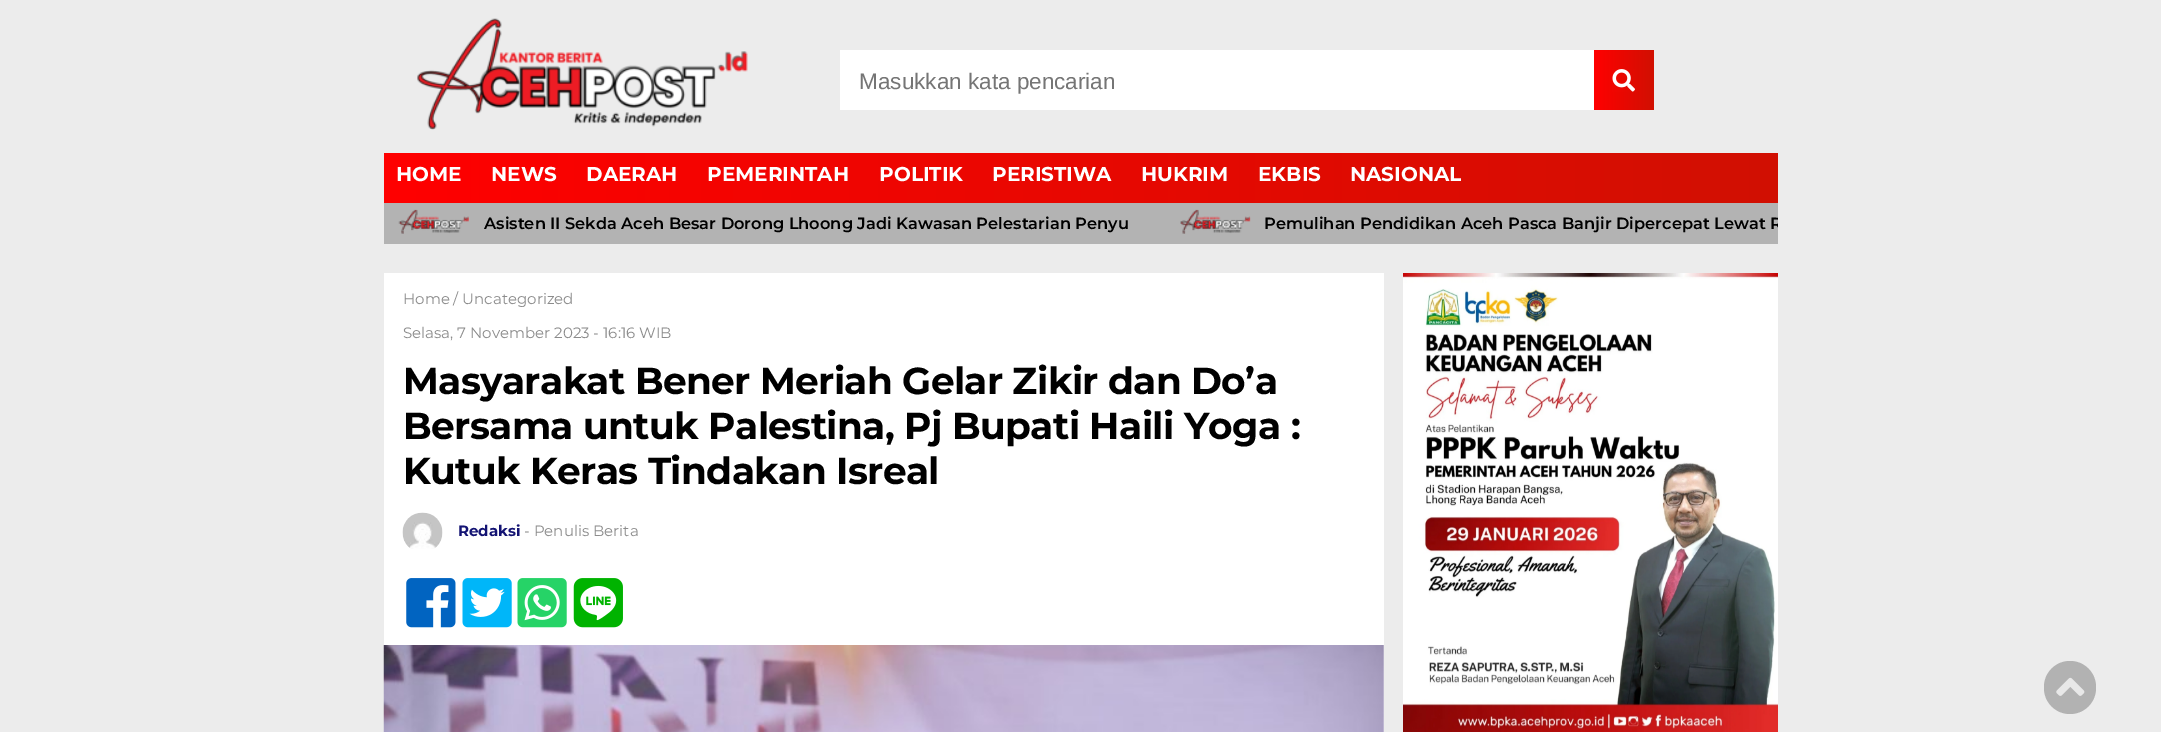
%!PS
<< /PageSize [2161 732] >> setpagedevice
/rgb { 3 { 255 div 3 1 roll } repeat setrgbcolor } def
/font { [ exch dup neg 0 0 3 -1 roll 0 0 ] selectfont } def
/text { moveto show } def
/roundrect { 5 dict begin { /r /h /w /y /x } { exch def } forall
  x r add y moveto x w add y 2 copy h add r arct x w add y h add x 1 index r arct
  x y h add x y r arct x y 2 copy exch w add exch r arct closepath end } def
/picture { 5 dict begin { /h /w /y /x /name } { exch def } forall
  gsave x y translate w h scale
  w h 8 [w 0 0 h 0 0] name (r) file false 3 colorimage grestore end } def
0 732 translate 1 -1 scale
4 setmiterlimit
236 236 236 rgb
0 0 2161 732 rectfill
(img_01.rgb) 417 18 331 112 picture
255 255 255 rgb
840 50 754 60 rectfill
gsave 1594 50 moveto 60 0 rlineto 0 60 rlineto -60 0 rlineto closepath clip newpath
<< /ShadingType 2 /ColorSpace /DeviceRGB /Coords [1594 80 1654 80] /Extend [true true] /Function << /FunctionType 2 /Domain [0 1] /C0 [1 0 0] /C1 [0.82 0.063 0.008] /N 1 >> >> shfill grestore
(img_02.rgb) 1612 69 23 23 picture
gsave 384 153 moveto 1394 0 rlineto 0 50 rlineto -1394 0 rlineto closepath clip newpath
<< /ShadingType 2 /ColorSpace /DeviceRGB /Coords [384 178 1778 177] /Extend [true true] /Function << /FunctionType 2 /Domain [0 1] /C0 [1 0 0] /C1 [0.82 0.063 0.008] /N 1 >> >> shfill grestore
179 179 179 rgb
384 203 1394 41 rectfill
(img_03.rgb) 398 209 71 25 picture
(img_04.rgb) 1180 209 71 25 picture
255 255 255 rgb
384 273 1000 459 rectfill
(img_05.rgb) 402 512 41 37 picture
(img_06.rgb) 406 578 50 50 picture
(img_07.rgb) 462 578 50 50 picture
(img_08.rgb) 517 578 50 50 picture
(img_09.rgb) 573 578 50 50 picture
(img_10.rgb) 383 645 1001 87 picture
(img_11.rgb) 1403 273 375 459 picture
178 178 178 rgb
2044 661 52 53 26 roundrect fill
(img_12.rgb) 2056 677 29 19 picture
/LiberationSans-Regular 22.5 font
117 117 117 rgb
(Masukkan kata pencarian) 859 89 text
/Montserrat-Bold 20 font
255 255 255 rgb
(HOME) 396 181 text
(NEWS) 491 181 text
(DAERAH) 586 181 text
(PEMERINTAH) 707 181 text
(POLITIK) 879 181 text
(PERISTIWA) 992 181 text
(HUKRIM) 1141 181 text
(EKBIS) 1258 181 text
(NASIONAL) 1350 181 text
/Montserrat-SemiBold 16.25 font
0 0 0 rgb
(Asisten II Sekda Aceh Besar Dorong Lhoong Jadi Kawasan Pelestarian Penyu) 484 229 text
gsave
384 203 1394 41 rectclip
(Pemulihan Pendidikan Aceh Pasca Banjir Dipercepat Lewat R) 1264 229 text
grestore
/Montserrat-Regular 15 font
140 140 140 rgb
(Home / Uncategorized) 403 304 text
(Selasa, 7 November 2023 - 16:16 WIB) 403 338 text
/Montserrat-Bold 37.5 font
0 0 0 rgb
403 394 moveto -0.6 0 (Masyarakat Bener Meriah Gelar Zikir dan Do’a) ashow
403 439 moveto -0.6 0 (Bersama untuk Palestina, Pj Bupati Haili Yoga :) ashow
403 484 moveto -0.6 0 (Kutuk Keras Tindakan Isreal) ashow
/Montserrat-Bold 15 font
19 19 115 rgb
(Redaksi) 458 536 text
/Montserrat-Regular 15 font
140 140 140 rgb
(- Penulis Berita) 524 536 text
showpage
